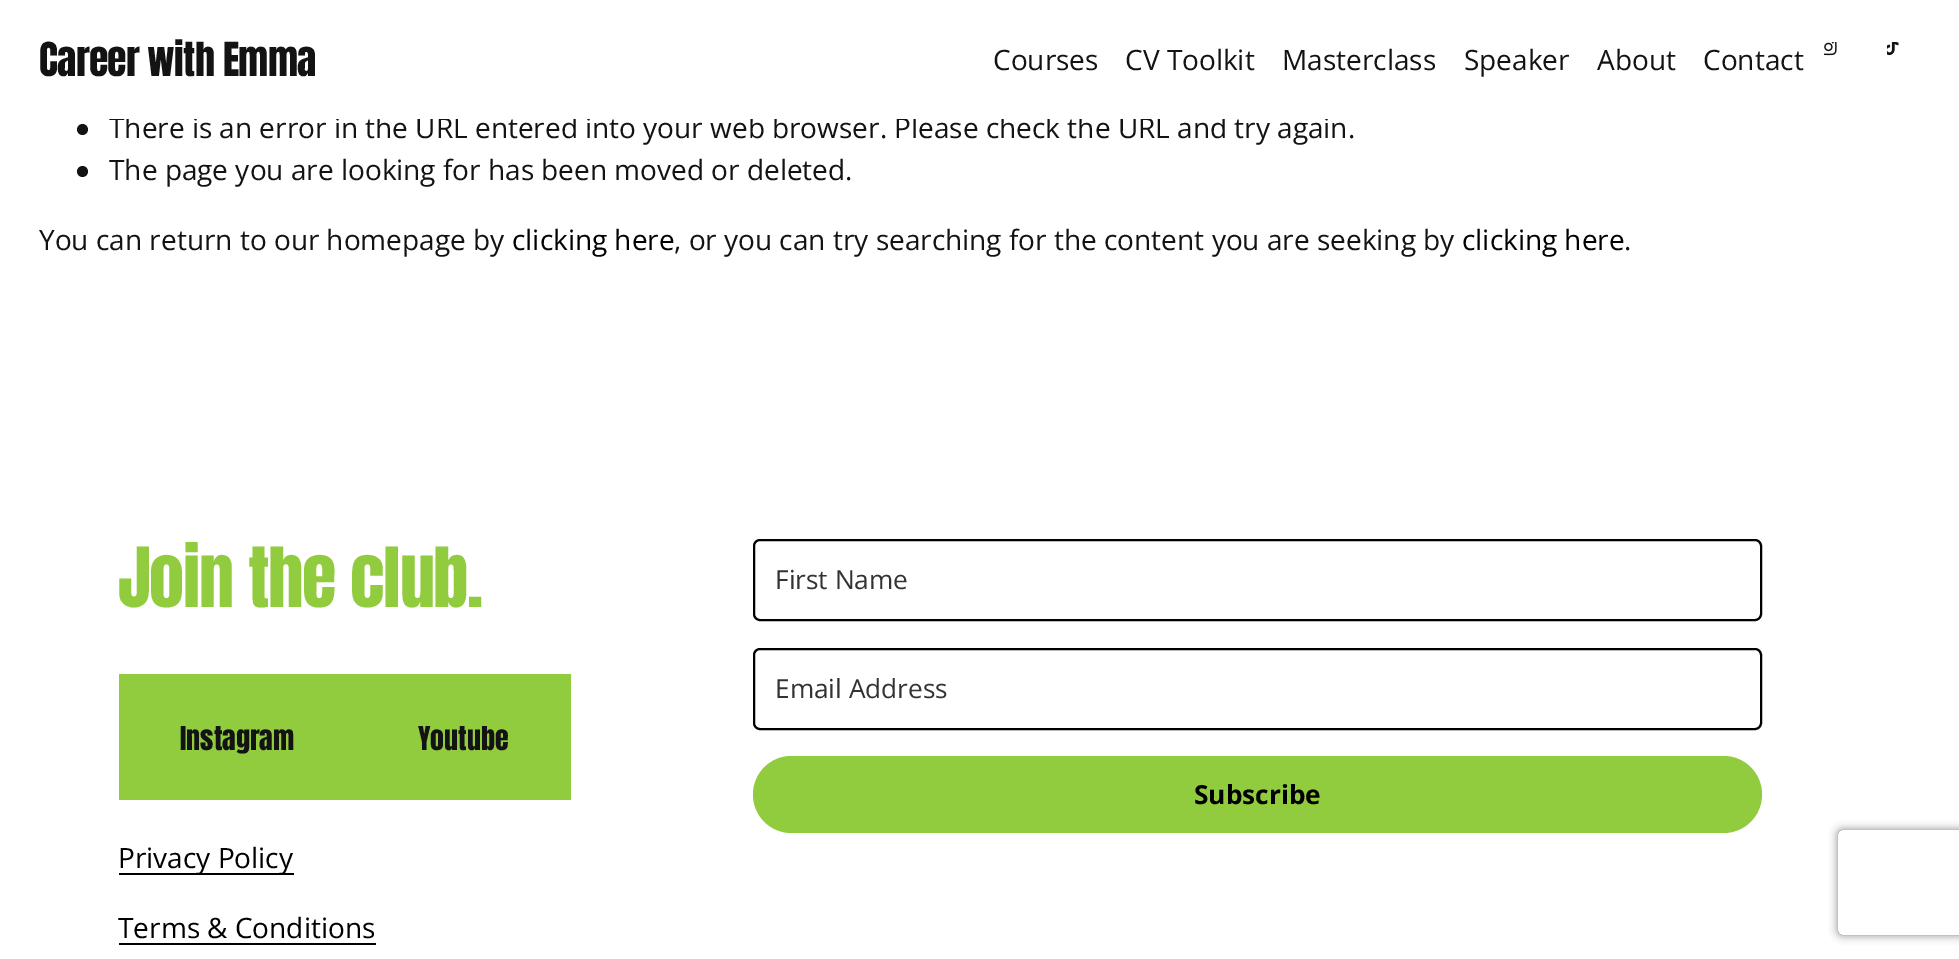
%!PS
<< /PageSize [1959 959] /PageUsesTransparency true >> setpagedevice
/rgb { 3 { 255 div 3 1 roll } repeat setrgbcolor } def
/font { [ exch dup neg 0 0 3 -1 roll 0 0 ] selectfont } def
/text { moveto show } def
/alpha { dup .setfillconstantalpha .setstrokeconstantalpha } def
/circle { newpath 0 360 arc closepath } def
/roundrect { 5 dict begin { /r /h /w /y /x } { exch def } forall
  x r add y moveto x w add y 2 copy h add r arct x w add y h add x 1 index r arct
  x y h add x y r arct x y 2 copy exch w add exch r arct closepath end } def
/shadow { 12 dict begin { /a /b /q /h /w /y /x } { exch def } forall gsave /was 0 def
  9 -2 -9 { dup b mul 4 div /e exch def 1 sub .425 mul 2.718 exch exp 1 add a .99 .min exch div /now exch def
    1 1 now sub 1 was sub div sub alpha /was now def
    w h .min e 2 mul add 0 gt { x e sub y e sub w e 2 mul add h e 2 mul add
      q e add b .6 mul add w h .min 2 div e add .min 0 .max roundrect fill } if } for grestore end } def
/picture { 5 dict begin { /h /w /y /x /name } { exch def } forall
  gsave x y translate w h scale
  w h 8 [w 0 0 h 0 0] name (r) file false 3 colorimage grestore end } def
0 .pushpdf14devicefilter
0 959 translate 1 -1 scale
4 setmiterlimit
255 255 255 rgb
0 0 1959 959 rectfill
(img_01.rgb) 1824 42 13 14 picture
(img_02.rgb) 1887 42 12 14 picture
19 19 20 rgb
82.5 129.5 5.5 circle fill
82.5 171.5 5.5 circle fill
0 0 0 rgb
2 setlinewidth
754 540 1007 80 6 roundrect stroke
754 649 1007 80 6 roundrect stroke
145 203 62 rgb
753 756 1009 77 38.5 roundrect fill
119 674 452 126 rectfill
0 0 0 rgb
119 873 175 2 rectfill
119 943 257 2 rectfill
gsave
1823 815 moveto 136 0 rlineto 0 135 rlineto -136 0 rlineto closepath 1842 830 moveto 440 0 rlineto 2 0 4 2 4 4 rcurveto 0 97 rlineto 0 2 -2 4 -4 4 rcurveto -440 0 rlineto -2 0 -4 -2 -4 -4 rcurveto 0 -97 rlineto 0 -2 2 -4 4 -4 rcurveto closepath eoclip newpath
128 128 128 rgb
1838 830 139 105 4 4.5 1 shadow
grestore
/Anton-Regular 39.75 font
19 19 20 rgb
39 76 moveto -0.75 0 (Career with Emma) ashow
/OpenSans-Regular 28 font
(Courses) 993 70 text
(CV Toolkit) 1125 70 text
(Masterclass) 1282 70 text
(Speaker) 1464 70 text
(About) 1597 70 text
(Contact) 1703 70 text
(There is an error in the URL entered into your web browser. Please check the URL and try again.) 109 138 text
255 255 255 rgb
109 116 1220 3 rectfill
19 19 20 rgb
(The page you are looking for has been moved or deleted.) 109 180 text
(You can return to our homepage by) 39 250 text
0 0 0 rgb
(clicking here) 512 250 text
19 19 20 rgb
(, or you can try searching for the content you are seeking by) 674 250 text
0 0 0 rgb
(clicking here) 1462 250 text
19 19 20 rgb
(.) 1624 250 text
/Anton-Regular 70.5 font
145 203 62 rgb
118 607 moveto -1.4 0 (Join the club.) ashow
/OpenSans-Regular 26.25 font
51 51 51 rgb
(First Name) 775 589 text
(Email Address) 775 698 text
/OpenSans-Bold 26.25 font
0 0 0 rgb
(Subscribe) 1194 804 text
/Anton-Regular 28 font
19 19 20 rgb
(Instagram) 180 750 text
(Youtube) 418 750 text
/OpenSans-Regular 28 font
0 0 0 rgb
(Privacy Policy) 118 868 text
(Terms & Conditions) 118 938 text
.poppdf14devicefilter showpage
